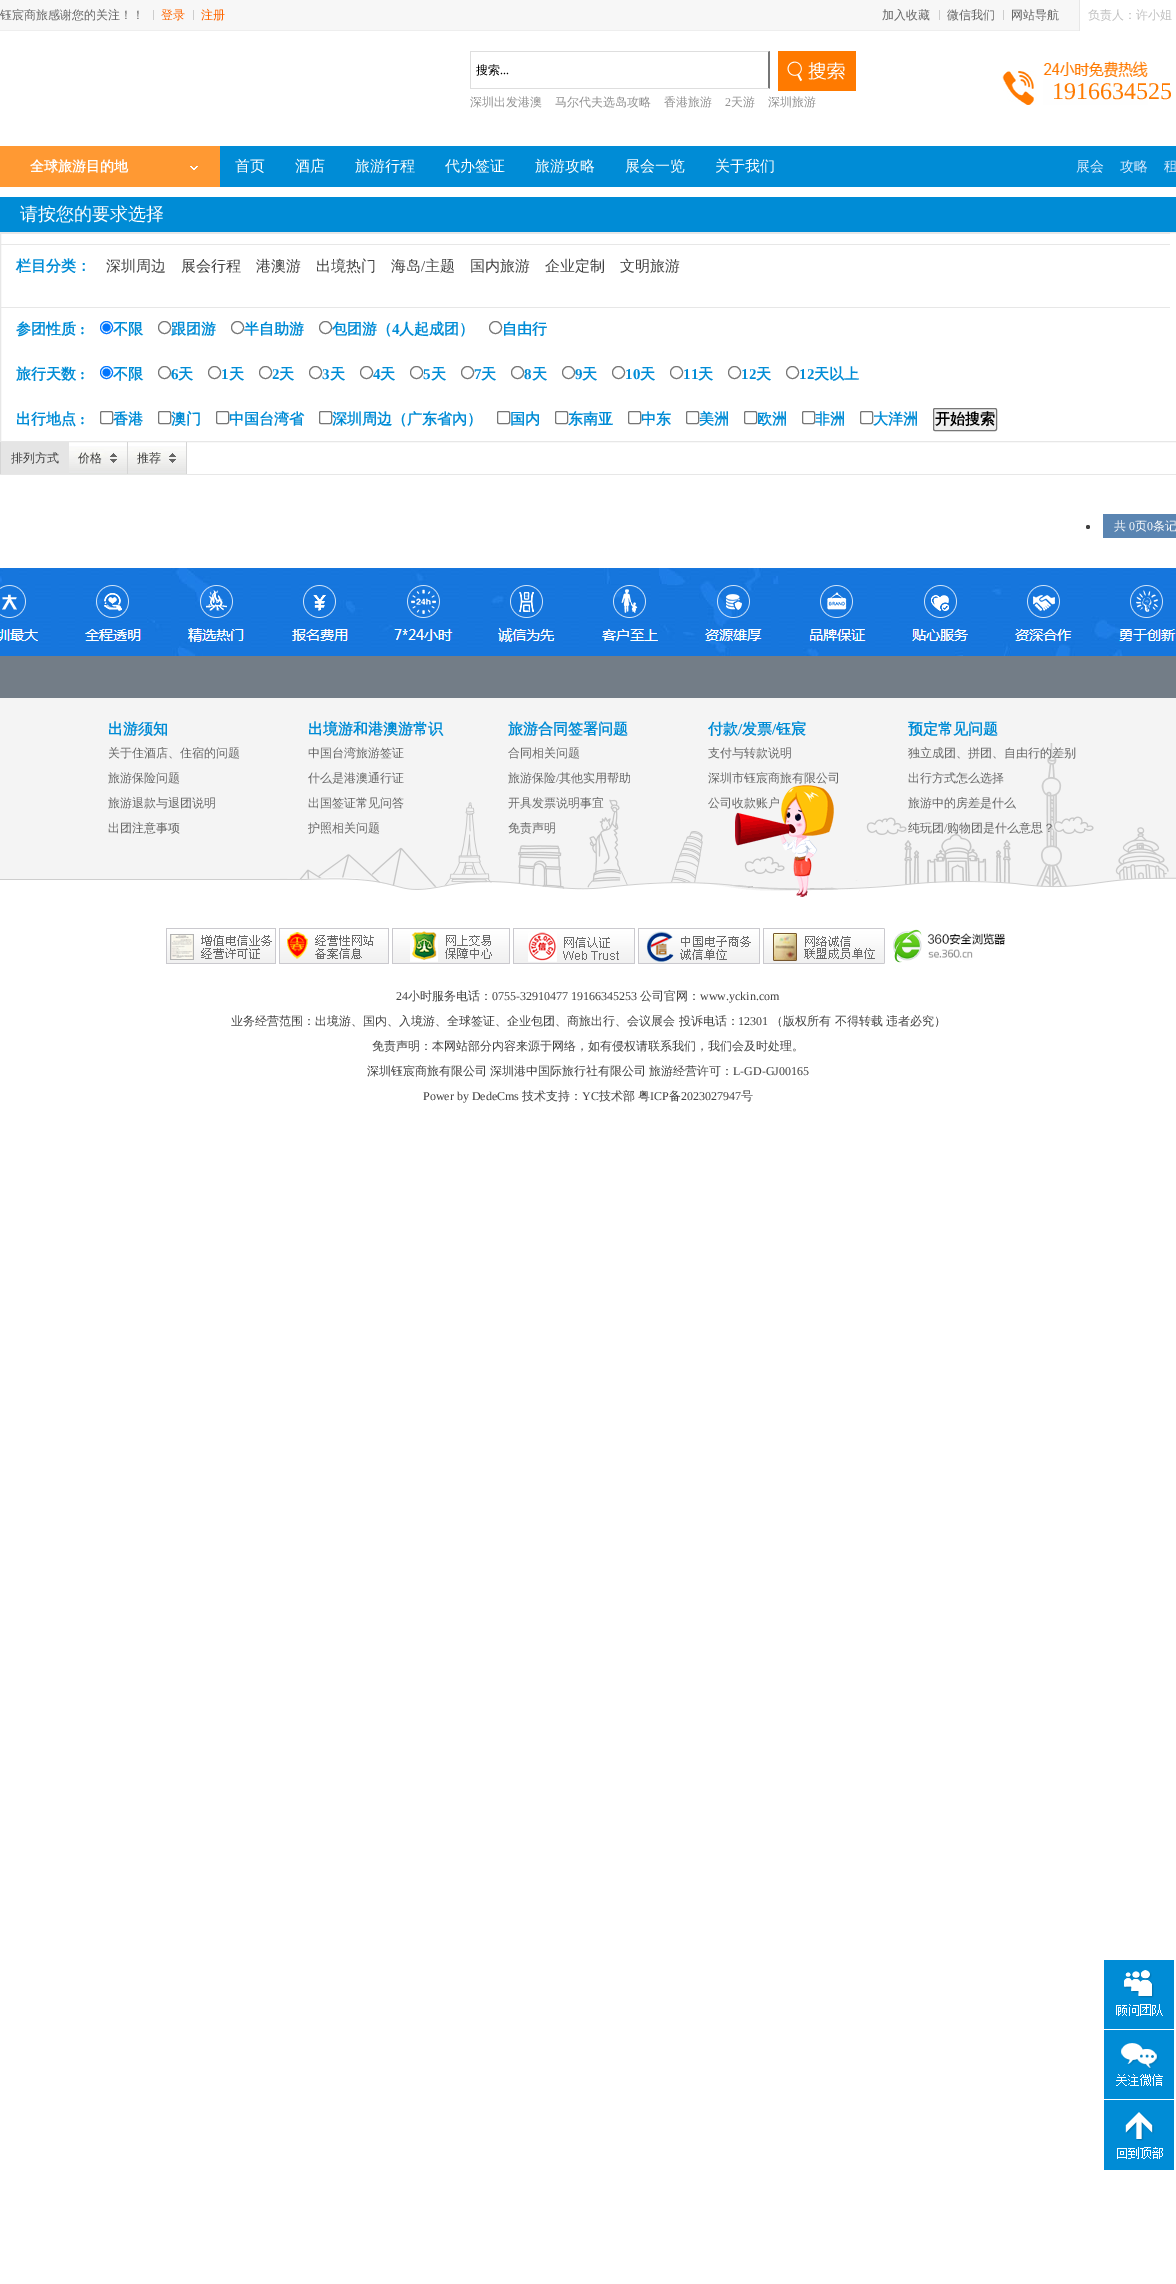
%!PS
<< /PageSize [1176 2284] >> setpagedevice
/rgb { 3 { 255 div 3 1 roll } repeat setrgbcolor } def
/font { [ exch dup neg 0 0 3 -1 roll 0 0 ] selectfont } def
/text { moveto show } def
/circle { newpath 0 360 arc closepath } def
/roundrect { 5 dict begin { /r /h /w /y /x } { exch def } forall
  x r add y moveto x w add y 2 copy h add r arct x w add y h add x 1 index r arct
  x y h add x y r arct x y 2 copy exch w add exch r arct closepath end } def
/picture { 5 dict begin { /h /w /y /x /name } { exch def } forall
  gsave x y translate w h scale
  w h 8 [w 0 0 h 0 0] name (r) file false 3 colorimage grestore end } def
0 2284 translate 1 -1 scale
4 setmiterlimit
255 255 255 rgb
0 0 1176 2284 rectfill
247 247 247 rgb
0 0 1079 30 rectfill
238 238 238 rgb
0 30 1079 1 rectfill
205 205 205 rgb
153 10 1 10 rectfill
193 10 1 10 rectfill
939 10 1 10 rectfill
1003 10 1 10 rectfill
231 231 231 rgb
1079 0 1 31 rectfill
222 222 222 rgb
470 51 moveto 300 0 rlineto -2 1 rlineto -297 0 rlineto closepath fill
118 118 118 rgb
770 51 moveto 0 38 rlineto -2 -1 rlineto 0 -36 rlineto closepath fill
222 222 222 rgb
770 89 moveto -300 0 rlineto 1 -1 rlineto 297 0 rlineto closepath fill
470 51 1 38 rectfill
(img_01.rgb) 778 51 78 40 picture
(img_02.rgb) 1002 61 146 44 picture
0 140 214 rgb
220 146 956 41 rectfill
255 153 51 rgb
0 146 220 41 rectfill
(img_03.rgb) 190 166 8 4 picture
0 140 214 rgb
0 197 1176 35 rectfill
231 231 231 rgb
0.5 232.5 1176 209 rectstroke
1 233 1169 1 rectfill
1 244 1169 1 rectfill
1 307 1169 1 rectfill
0 117 255 rgb
106.5 327.5 6 circle stroke
106.5 327.5 4 circle fill
118 118 118 rgb
164.5 327.5 6 circle stroke
237.5 327.5 6 circle stroke
325.5 327.5 6 circle stroke
495.5 327.5 6 circle stroke
0 117 255 rgb
106.5 372.5 6 circle stroke
106.5 372.5 4 circle fill
118 118 118 rgb
164.5 372.5 6 circle stroke
214.5 372.5 6 circle stroke
265.5 372.5 6 circle stroke
315.5 372.5 6 circle stroke
366.5 372.5 6 circle stroke
416.5 372.5 6 circle stroke
467.5 372.5 6 circle stroke
517.5 372.5 6 circle stroke
568.5 372.5 6 circle stroke
618.5 372.5 6 circle stroke
676.5 372.5 6 circle stroke
734.5 372.5 6 circle stroke
792.5 372.5 6 circle stroke
100.5 411.5 12 12 1.5 roundrect stroke
158.5 411.5 12 12 1.5 roundrect stroke
216.5 411.5 12 12 1.5 roundrect stroke
319.5 411.5 12 12 1.5 roundrect stroke
497.5 411.5 12 12 1.5 roundrect stroke
555.5 411.5 12 12 1.5 roundrect stroke
628.5 411.5 12 12 1.5 roundrect stroke
686.5 411.5 12 12 1.5 roundrect stroke
744.5 411.5 12 12 1.5 roundrect stroke
802.5 411.5 12 12 1.5 roundrect stroke
860.5 411.5 12 12 1.5 roundrect stroke
239 239 239 rgb
933.5 408.5 63 22 1.5 roundrect gsave fill grestore
118 118 118 rgb
stroke
231 231 231 rgb
0 474 1176 1 rectfill
229 229 229 rgb
1 442 68 32 rectfill
213 213 213 rgb
0 442 1 32 rectfill
(img_04.rgb) 69 446 58 28 picture
127 442 1 32 rectfill
(img_04.rgb) 128 446 58 28 picture
186 442 1 32 rectfill
64 64 64 rgb
1088 527 2 circle fill
90 133 178 rgb
1103 514 73 24 rectfill
(img_05.rgb) 0 568 1176 88 picture
(img_06.rgb) 0 698 1176 199 picture
115 125 135 rgb
0 656 1176 42 rectfill
(img_07.rgb) 166 928 110 36 picture
(img_08.rgb) 279 928 110 36 picture
(img_09.rgb) 392 928 118 36 picture
(img_10.rgb) 513 928 122 36 picture
(img_11.rgb) 638 928 122 36 picture
(img_12.rgb) 763 928 122 36 picture
(img_13.rgb) 893 929 112 34 picture
0 140 214 rgb
1104 1960 70 69 rectfill
(img_14.rgb) 1116 1970 47 46 picture
1104 2030 70 69 rectfill
(img_15.rgb) 1116 2043 47 43 picture
1104 2100 70 70 rectfill
(img_16.rgb) 1117 2112 46 47 picture
/WenQuanYiZenHei-Medium 12 font
102 102 102 rgb
(钰宸商旅感谢您的关注！！) 0 19 text
255 102 0 rgb
(登录) 161 19 text
(注册) 201 19 text
102 102 102 rgb
(加入收藏) 882 19 text
(微信我们) 947 19 text
(网站导航) 1011 19 text
190 190 190 rgb
(负责人：许小姐) 1088 19 text
0 0 0 rgb
(搜索) 476 74 text
/LiberationSerif-Regular 12 font
(...) 500 74 text
/WenQuanYiZenHei-Medium 12 font
145 145 145 rgb
(深圳出发港澳) 470 106 text
(马尔代夫选岛攻略) 555 106 text
(香港旅游) 664 106 text
/LiberationSerif-Regular 12 font
(2) 725 106 text
/WenQuanYiZenHei-Medium 12 font
(天游) 731 106 text
(深圳旅游) 768 106 text
/LiberationSerif-Regular 24 font
254 123 2 rgb
(1916634525) 1052 99 text
/WenQuanYiZenHei-Bold 14 font
255 255 255 rgb
(全球旅游目的地) 30 171 text
/WenQuanYiZenHei-Medium 15 font
(首页) 235 171 text
(酒店) 295 171 text
(旅游行程) 355 171 text
(代办签证) 445 171 text
(旅游攻略) 535 171 text
(展会一览) 625 171 text
(关于我们) 715 171 text
/WenQuanYiZenHei-Medium 14 font
222 236 255 rgb
(展会) 1076 171 text
(攻略) 1120 171 text
(租) 1164 171 text
/WenQuanYiZenHei-Medium 18 font
255 255 255 rgb
(请按您的要求选择) 20 220 text
/WenQuanYiZenHei-Bold 15 font
0 140 214 rgb
(栏目分类：) 16 271 text
/WenQuanYiZenHei-Medium 15 font
64 64 64 rgb
(深圳周边) 106 271 text
(展会行程) 181 271 text
(港澳游) 256 271 text
(出境热门) 316 271 text
(海岛) 391 271 text
/LiberationSerif-Regular 15 font
(/) 421 271 text
/WenQuanYiZenHei-Medium 15 font
(主题) 425 271 text
(国内旅游) 470 271 text
(企业定制) 545 271 text
(文明旅游) 620 271 text
/WenQuanYiZenHei-Bold 15 font
0 140 214 rgb
(参团性质) 16 334 text
/LiberationSerif-Bold 15 font
(:) 80 334 text
/WenQuanYiZenHei-Bold 15 font
(不限) 113 334 text
(跟团游) 171 334 text
(半自助游) 244 334 text
(包团游（) 332 334 text
/LiberationSerif-Bold 15 font
(4) 392 334 text
/WenQuanYiZenHei-Bold 15 font
(人起成团）) 399 334 text
(自由行) 502 334 text
(旅行天数) 16 379 text
/LiberationSerif-Bold 15 font
(:) 80 379 text
/WenQuanYiZenHei-Bold 15 font
(不限) 113 379 text
/LiberationSerif-Bold 15 font
(6) 171 379 text
/WenQuanYiZenHei-Bold 15 font
(天) 178 379 text
/LiberationSerif-Bold 15 font
(1) 221 379 text
/WenQuanYiZenHei-Bold 15 font
(天) 229 379 text
/LiberationSerif-Bold 15 font
(2) 272 379 text
/WenQuanYiZenHei-Bold 15 font
(天) 279 379 text
/LiberationSerif-Bold 15 font
(3) 322 379 text
/WenQuanYiZenHei-Bold 15 font
(天) 330 379 text
/LiberationSerif-Bold 15 font
(4) 373 379 text
/WenQuanYiZenHei-Bold 15 font
(天) 380 379 text
/LiberationSerif-Bold 15 font
(5) 423 379 text
/WenQuanYiZenHei-Bold 15 font
(天) 431 379 text
/LiberationSerif-Bold 15 font
(7) 474 379 text
/WenQuanYiZenHei-Bold 15 font
(天) 481 379 text
/LiberationSerif-Bold 15 font
(8) 524 379 text
/WenQuanYiZenHei-Bold 15 font
(天) 532 379 text
/LiberationSerif-Bold 15 font
(9) 575 379 text
/WenQuanYiZenHei-Bold 15 font
(天) 582 379 text
/LiberationSerif-Bold 15 font
(10) 625 379 text
/WenQuanYiZenHei-Bold 15 font
(天) 640 379 text
/LiberationSerif-Bold 15 font
(11) 683 379 text
/WenQuanYiZenHei-Bold 15 font
(天) 698 379 text
/LiberationSerif-Bold 15 font
(12) 741 379 text
/WenQuanYiZenHei-Bold 15 font
(天) 756 379 text
/LiberationSerif-Bold 15 font
(12) 799 379 text
/WenQuanYiZenHei-Bold 15 font
(天以上) 814 379 text
(出行地点) 16 424 text
/LiberationSerif-Bold 15 font
(:) 80 424 text
/WenQuanYiZenHei-Bold 15 font
(香港) 113 424 text
(澳门) 171 424 text
(中国台湾省) 229 424 text
(深圳周边（广东省內）) 332 424 text
(国内) 510 424 text
(东南亚) 568 424 text
(中东) 641 424 text
(美洲) 699 424 text
(欧洲) 757 424 text
(非洲) 815 424 text
(大洋洲) 873 424 text
0 0 0 rgb
(开始搜索) 935 424 text
/WenQuanYiZenHei-Medium 12 font
64 64 64 rgb
(排列方式) 11 462 text
(价格) 78 462 text
(推荐) 137 462 text
255 255 255 rgb
(共) 1114 530 text
/LiberationSerif-Regular 12 font
(0) 1129 530 text
/WenQuanYiZenHei-Medium 12 font
(页) 1135 530 text
/LiberationSerif-Regular 12 font
(0) 1147 530 text
/WenQuanYiZenHei-Medium 12 font
(条记) 1153 530 text
/WenQuanYiZenHei-Bold 15 font
0 140 214 rgb
(出游须知) 108 734 text
/WenQuanYiZenHei-Medium 12 font
102 102 102 rgb
(关于住酒店、住宿的问题) 108 757 text
(旅游保险问题) 108 782 text
(旅游退款与退团说明) 108 807 text
(出团注意事项) 108 832 text
/WenQuanYiZenHei-Bold 15 font
0 140 214 rgb
(出境游和港澳游常识) 308 734 text
/WenQuanYiZenHei-Medium 12 font
102 102 102 rgb
(中国台湾旅游签证) 308 757 text
(什么是港澳通行证) 308 782 text
(出国签证常见问答) 308 807 text
(护照相关问题) 308 832 text
/WenQuanYiZenHei-Bold 15 font
0 140 214 rgb
(旅游合同签署问题) 508 734 text
/WenQuanYiZenHei-Medium 12 font
102 102 102 rgb
(合同相关问题) 508 757 text
(旅游保险) 508 782 text
/LiberationSerif-Regular 12 font
(/) 556 782 text
/WenQuanYiZenHei-Medium 12 font
(其他实用帮助) 559 782 text
(开具发票说明事宜) 508 807 text
(免责声明) 508 832 text
/WenQuanYiZenHei-Bold 15 font
0 140 214 rgb
(付款) 708 734 text
/LiberationSerif-Bold 15 font
(/) 738 734 text
/WenQuanYiZenHei-Bold 15 font
(发票) 742 734 text
/LiberationSerif-Bold 15 font
(/) 772 734 text
/WenQuanYiZenHei-Bold 15 font
(钰宸) 776 734 text
/WenQuanYiZenHei-Medium 12 font
102 102 102 rgb
(支付与转款说明) 708 757 text
(深圳市钰宸商旅有限公司) 708 782 text
(公司收款账户) 708 807 text
/WenQuanYiZenHei-Bold 15 font
0 140 214 rgb
(预定常见问题) 908 734 text
/WenQuanYiZenHei-Medium 12 font
102 102 102 rgb
(独立成团、拼团、自由行的差别) 908 757 text
(出行方式怎么选择) 908 782 text
(旅游中的房差是什么) 908 807 text
(纯玩团) 908 832 text
/LiberationSerif-Regular 12 font
(/) 944 832 text
/WenQuanYiZenHei-Medium 12 font
(购物团是什么意思？) 947 832 text
/LiberationSerif-Regular 12 font
64 64 64 rgb
(24) 396 1000 text
/WenQuanYiZenHei-Medium 12 font
(小时服务电话：) 408 1000 text
/LiberationSerif-Regular 12 font
(0755-32910477 19166345253) 492 1000 text
/WenQuanYiZenHei-Medium 12 font
(公司官网：) 640 1000 text
/LiberationSerif-Regular 12 font
(www.yckin.com) 700 1000 text
/WenQuanYiZenHei-Medium 12 font
(业务经营范围：出境游、国内、入境游、全球签证、企业包团、商旅出行、会议展会 投诉电话：) 231 1025 text
/LiberationSerif-Regular 12 font
(12301) 738 1025 text
/WenQuanYiZenHei-Medium 12 font
(（版权所有 不得转载 违者必究）) 771 1025 text
(免责声明：本网站部分内容来源于网络，如有侵权请联系我们，我们会及时处理。) 372 1050 text
(深圳钰宸商旅有限公司) 367 1075 text
490 1075 moveto -1 0 32 (深圳港中国际旅行社有限公司 旅游经营许可：) widthshow
/LiberationSerif-Regular 12 font
(L-GD-GJ00165) 733 1075 text
(Power by DedeCms) 423 1100 text
/WenQuanYiZenHei-Medium 12 font
(技术支持：) 522 1100 text
/LiberationSerif-Regular 12 font
(YC) 582 1100 text
/WenQuanYiZenHei-Medium 12 font
(技术部) 599 1100 text
(粤) 638 1100 text
/LiberationSerif-Regular 12 font
(ICP) 650 1100 text
/WenQuanYiZenHei-Medium 12 font
(备) 669 1100 text
/LiberationSerif-Regular 12 font
(2023027947) 681 1100 text
/WenQuanYiZenHei-Medium 12 font
(号) 741 1100 text
showpage
